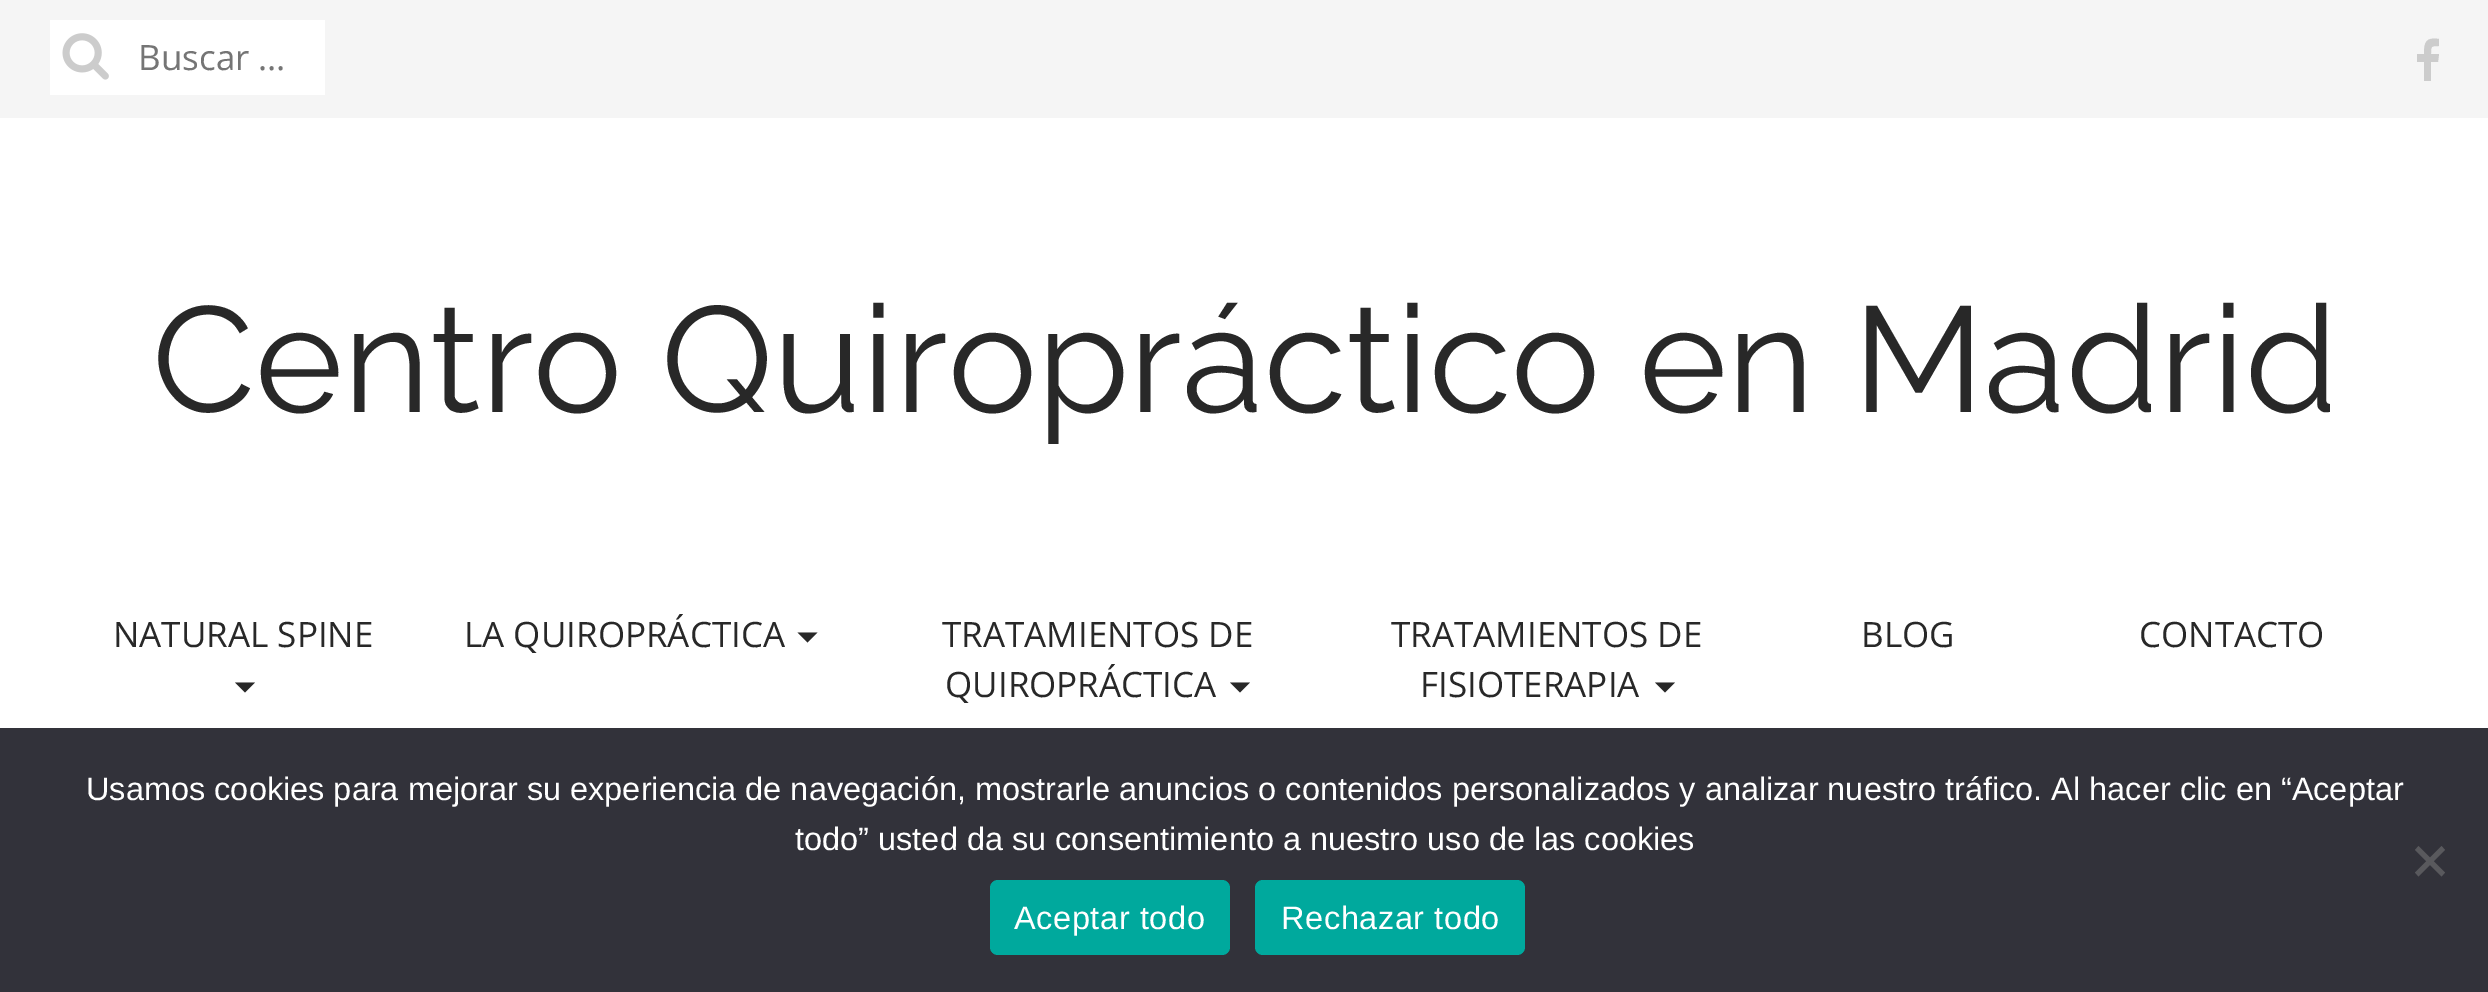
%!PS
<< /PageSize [2488 992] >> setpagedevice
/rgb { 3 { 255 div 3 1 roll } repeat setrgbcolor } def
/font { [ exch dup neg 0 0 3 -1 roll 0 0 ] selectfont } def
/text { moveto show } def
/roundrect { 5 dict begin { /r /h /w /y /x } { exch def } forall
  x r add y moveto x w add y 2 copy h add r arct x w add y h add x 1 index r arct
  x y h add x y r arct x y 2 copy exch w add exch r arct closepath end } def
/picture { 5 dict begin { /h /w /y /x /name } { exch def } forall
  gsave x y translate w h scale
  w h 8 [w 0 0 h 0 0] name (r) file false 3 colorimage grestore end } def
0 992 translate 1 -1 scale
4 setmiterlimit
255 255 255 rgb
0 0 2488 992 rectfill
245 245 245 rgb
0 0 2488 118 rectfill
255 255 255 rgb
50 20 275 75 rectfill
(img_01.rgb) 62 33 47 47 picture
204 204 204 rgb
2439 39 moveto -13 -2 -15 3 -15 15 rcurveto -7 0 rlineto 0 8 rlineto 7 0 rlineto 0 19 rlineto 7 0 rlineto 0 -19 rlineto 7 0 rlineto 1 -8 rlineto -8 0 rlineto 0 -8 0 -8 8 -8 rcurveto closepath fill
40 40 40 rgb
235 682.5 moveto 20 0 rlineto -10 10 rlineto closepath fill
797.5 632.5 moveto 20 0 rlineto -10 10 rlineto closepath fill
1230 682.5 moveto 20 0 rlineto -10 10 rlineto closepath fill
1655 682.5 moveto 20 0 rlineto -10 10 rlineto closepath fill
50 50 58 rgb
0 728 2488 264 rectfill
89 89 93 rgb
2441.5 846 moveto 3.5 4 rlineto -26.5 26.5 rlineto -3.5 -4 rlineto closepath fill
2415 850 moveto 3.5 -4 rlineto 26.5 26.5 rlineto -3.5 4 rlineto closepath fill
0 169 157 rgb
990 880 240 75 8 roundrect fill
1255 880 270 75 8 roundrect fill
/OpenSans-Regular 35 font
117 117 117 rgb
(Buscar …) 138 70 text
/Raleway-Thin 150 font
40 40 40 rgb
(Centro Quiropráctico en Madrid) 152 412 text
/OpenSans-Regular 35 font
(NATURAL SPINE) 113 647 text
(LA QUIROPRÁCTICA) 464 647 text
(TRATAMIENTOS DE) 942 647 text
(QUIROPRÁCTICA) 945 697 text
(TRATAMIENTOS DE) 1391 647 text
(FISIOTERAPIA) 1420 697 text
(BLOG) 1861 647 text
(CONTACTO) 2139 647 text
/LiberationSans-Regular 32.5 font
255 255 255 rgb
(Usamos cookies para mejorar su experiencia de navegación, mostrarle anuncios o contenidos personalizados y analizar nuestro tráfico. Al hacer clic en “Aceptar) 86 800 text
(todo” usted da su consentimiento a nuestro uso de las cookies) 795 850 text
1014 929 moveto 0.6 0 (Aceptar todo) ashow
1281 929 moveto 0.6 0 (Rechazar todo) ashow
showpage
